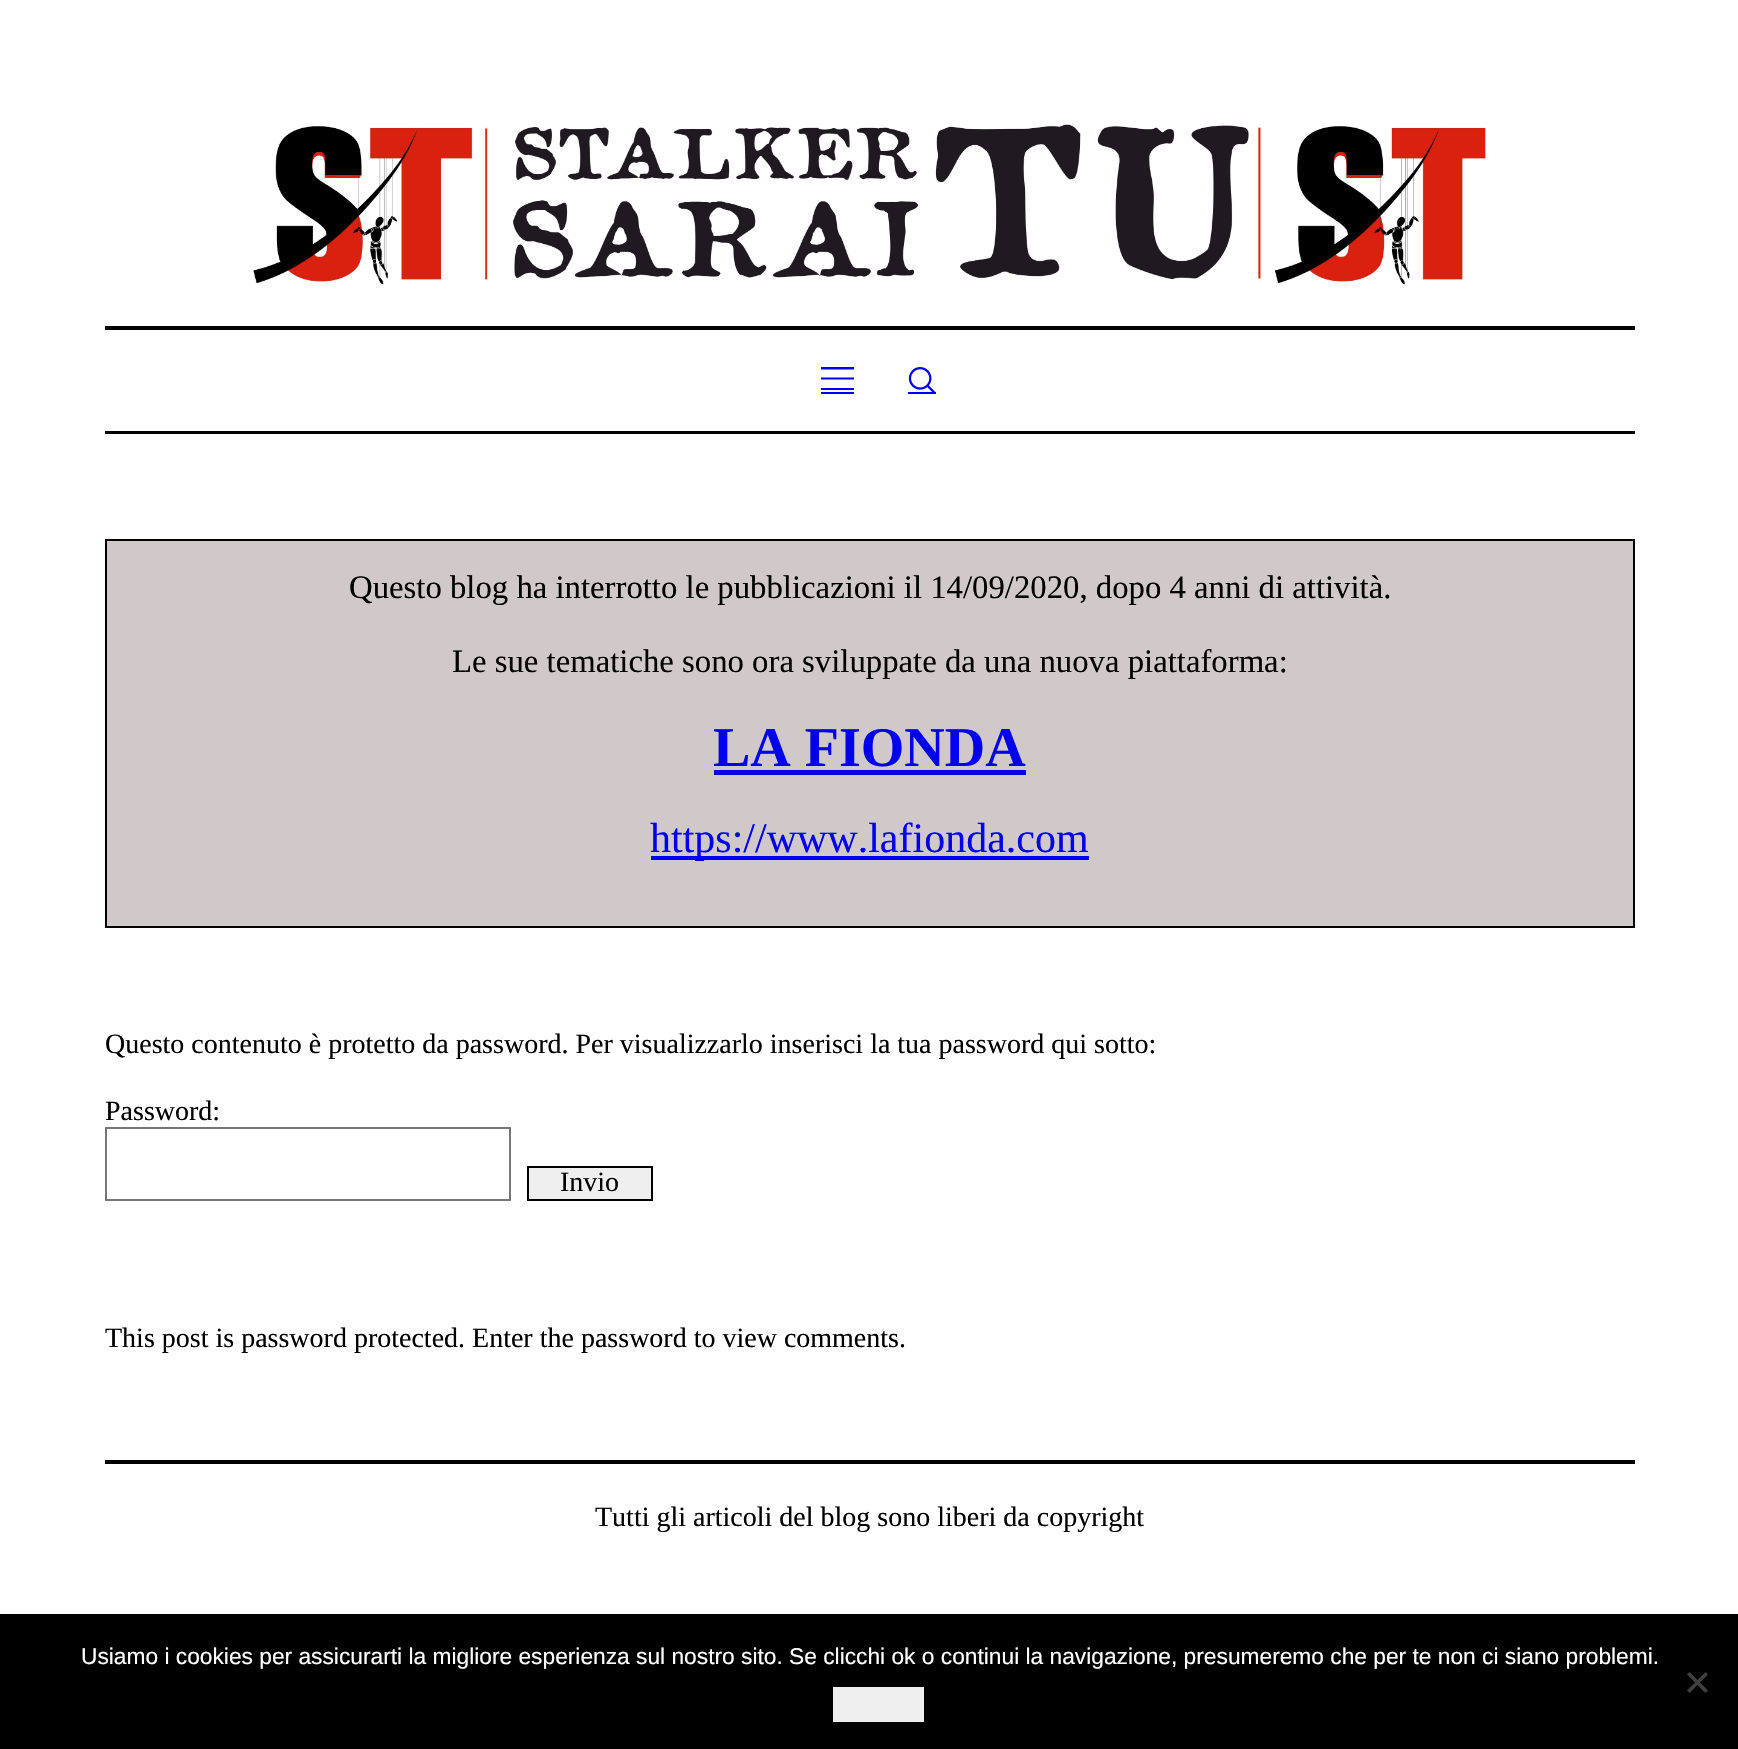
#include "include/core/SkBlurTypes.h"
#include "include/core/SkCanvas.h"
#include "include/core/SkData.h"
#include "include/core/SkFont.h"
#include "include/core/SkFontMgr.h"
#include "include/core/SkImage.h"
#include "include/core/SkMaskFilter.h"
#include "include/core/SkPaint.h"
#include "include/core/SkPathBuilder.h"
#include "include/core/SkTextBlob.h"
#include "include/effects/SkDashPathEffect.h"
#include "include/effects/SkGradientShader.h"
#include "include/utils/SkParsePath.h"

extern sk_sp<SkFontMgr> fontMgr;

void draw(SkCanvas* canvas) {
  SkPaint p;
  p.setAntiAlias(true);
  canvas->clear(SK_ColorWHITE);
  canvas->drawImageRect(SkImages::DeferredFromEncodedData(SkData::MakeFromFileName("images/1.png")), SkRect::MakeLTRB(253, 124, 1486, 285), SkSamplingOptions());
  p.setColor(SK_ColorBLACK);
  canvas->drawRect(SkRect::MakeLTRB(105, 326, 1635, 330), p);
  canvas->drawRect(SkRect::MakeLTRB(105, 431, 1635, 434), p);
  p.setColor(SkColorSetRGB(0, 0, 238));
  canvas->drawRect(SkRect::MakeLTRB(821, 392, 854, 394), p);
  canvas->drawPath(SkPathBuilder().moveTo(821, 367).lineTo(821, 369.5f).lineTo(854, 369.5f).lineTo(854, 367).close().moveTo(821, 379.5f).lineTo(854, 379.5f).lineTo(854, 377.5f).lineTo(821, 377.5f).close().moveTo(821, 390).lineTo(854, 390).lineTo(854, 388).lineTo(821, 388).close().detach(), p);
  canvas->drawRect(SkRect::MakeLTRB(908, 392, 936, 394), p);
  canvas->drawImageRect(SkImages::DeferredFromEncodedData(SkData::MakeFromFileName("images/2.png")), SkRect::MakeLTRB(908, 367, 936, 392), SkSamplingOptions());
  p.setColor(SK_ColorBLACK);
  canvas->drawRect(SkRect::MakeLTRB(105, 539, 1635, 541), p);
  canvas->drawRect(SkRect::MakeLTRB(1633, 539, 1635, 928), p);
  canvas->drawRect(SkRect::MakeLTRB(105, 926, 1635, 928), p);
  canvas->drawRect(SkRect::MakeLTRB(105, 539, 107, 928), p);
  p.setColor(SkColorSetRGB(209, 201, 201));
  canvas->drawRect(SkRect::MakeLTRB(107, 541, 1633, 926), p);
  p.setColor(SkColorSetRGB(0, 0, 238));
  canvas->drawRect(SkRect::MakeLTRB(714, 770, 1026, 775), p);
  canvas->drawRect(SkRect::MakeLTRB(651, 856, 1089, 860), p);
  p.setStyle(SkPaint::kStroke_Style);
  p.setStrokeWidth(2);
  p.setColor(SkColorSetRGB(118, 118, 118));
  canvas->drawRect(SkRect::MakeLTRB(106, 1128, 510, 1200), p);
  p.setStyle(SkPaint::kFill_Style);
  p.setColor(SkColorSetRGB(239, 239, 239));
  canvas->drawRect(SkRect::MakeLTRB(528, 1167, 652, 1200), p);
  p.setStyle(SkPaint::kStroke_Style);
  p.setColor(SK_ColorBLACK);
  canvas->drawRect(SkRect::MakeLTRB(528, 1167, 652, 1200), p);
  p.setStyle(SkPaint::kFill_Style);
  canvas->drawRect(SkRect::MakeLTRB(105, 1460, 1635, 1464), p);
  canvas->drawRect(SkRect::MakeLTRB(0, 1614, 1738, 1749), p);
  p.setColor(SkColorSetRGB(64, 64, 64));
  canvas->drawPath(SkPathBuilder().moveTo(1705.5f, 1672).lineTo(1708, 1674.5f).lineTo(1689.5f, 1693).lineTo(1687, 1690.5f).close().detach(), p);
  canvas->drawPath(SkPathBuilder().moveTo(1687, 1674.5f).lineTo(1689.5f, 1672).lineTo(1708, 1690.5f).lineTo(1705.5f, 1693).close().detach(), p);
  p.setColor(SkColorSetRGB(239, 239, 239));
  canvas->drawRect(SkRect::MakeLTRB(833, 1687, 924, 1722), p);
  SkFont font1(fontMgr->matchFamilyStyle("Liberation Serif", SkFontStyle::Normal()), 32.75f);
  font1.setSubpixel(true);
  p.setColor(SK_ColorBLACK);
  canvas->drawString("Questo blog ha interrotto le pubblicazioni il 14/09/2020, dopo 4 anni di attività.", 349, 598, font1, p);
  canvas->drawString("Le sue tematiche sono ora sviluppate da una nuova piattaforma:", 452, 672, font1, p);
  SkFont font2(fontMgr->matchFamilyStyle("Liberation Serif", SkFontStyle::Bold()), 56);
  font2.setSubpixel(true);
  p.setColor(SkColorSetRGB(0, 0, 238));
  canvas->drawString("LA FIONDA", 713, 766, font2, p);
  SkFont font3(fontMgr->matchFamilyStyle("Liberation Serif", SkFontStyle::Normal()), 42);
  font3.setSubpixel(true);
  canvas->drawString("https://www.lafionda.com", 650, 852, font3, p);
  SkFont font4(fontMgr->matchFamilyStyle("Liberation Serif", SkFontStyle::Normal()), 28);
  font4.setSubpixel(true);
  p.setColor(SK_ColorBLACK);
  canvas->drawString("Questo contenuto è protetto da password. Per visualizzarlo inserisci la tua password qui sotto:", 105, 1053, font4, p);
  canvas->drawString("Password:", 105, 1120, font4, p);
  canvas->drawString("Invio", 560, 1191, font4, p);
  canvas->drawString("This post is password protected. Enter the password to view comments.", 105, 1347, font4, p);
  canvas->drawString("Tutti gli articoli del blog sono liberi da copyright", 595, 1526, font4, p);
  SkFont font5(fontMgr->matchFamilyStyle("Liberation Sans", SkFontStyle::Normal()), 22.75f);
  font5.setSubpixel(true);
  p.setColor(SK_ColorWHITE);
  canvas->drawString("Usiamo i cookies per assicurarti la migliore esperienza sul nostro sito. Se clicchi ok o continui la navigazione, presumeremo che per te non ci siano problemi.", 81, 1664, font5, p);
}
